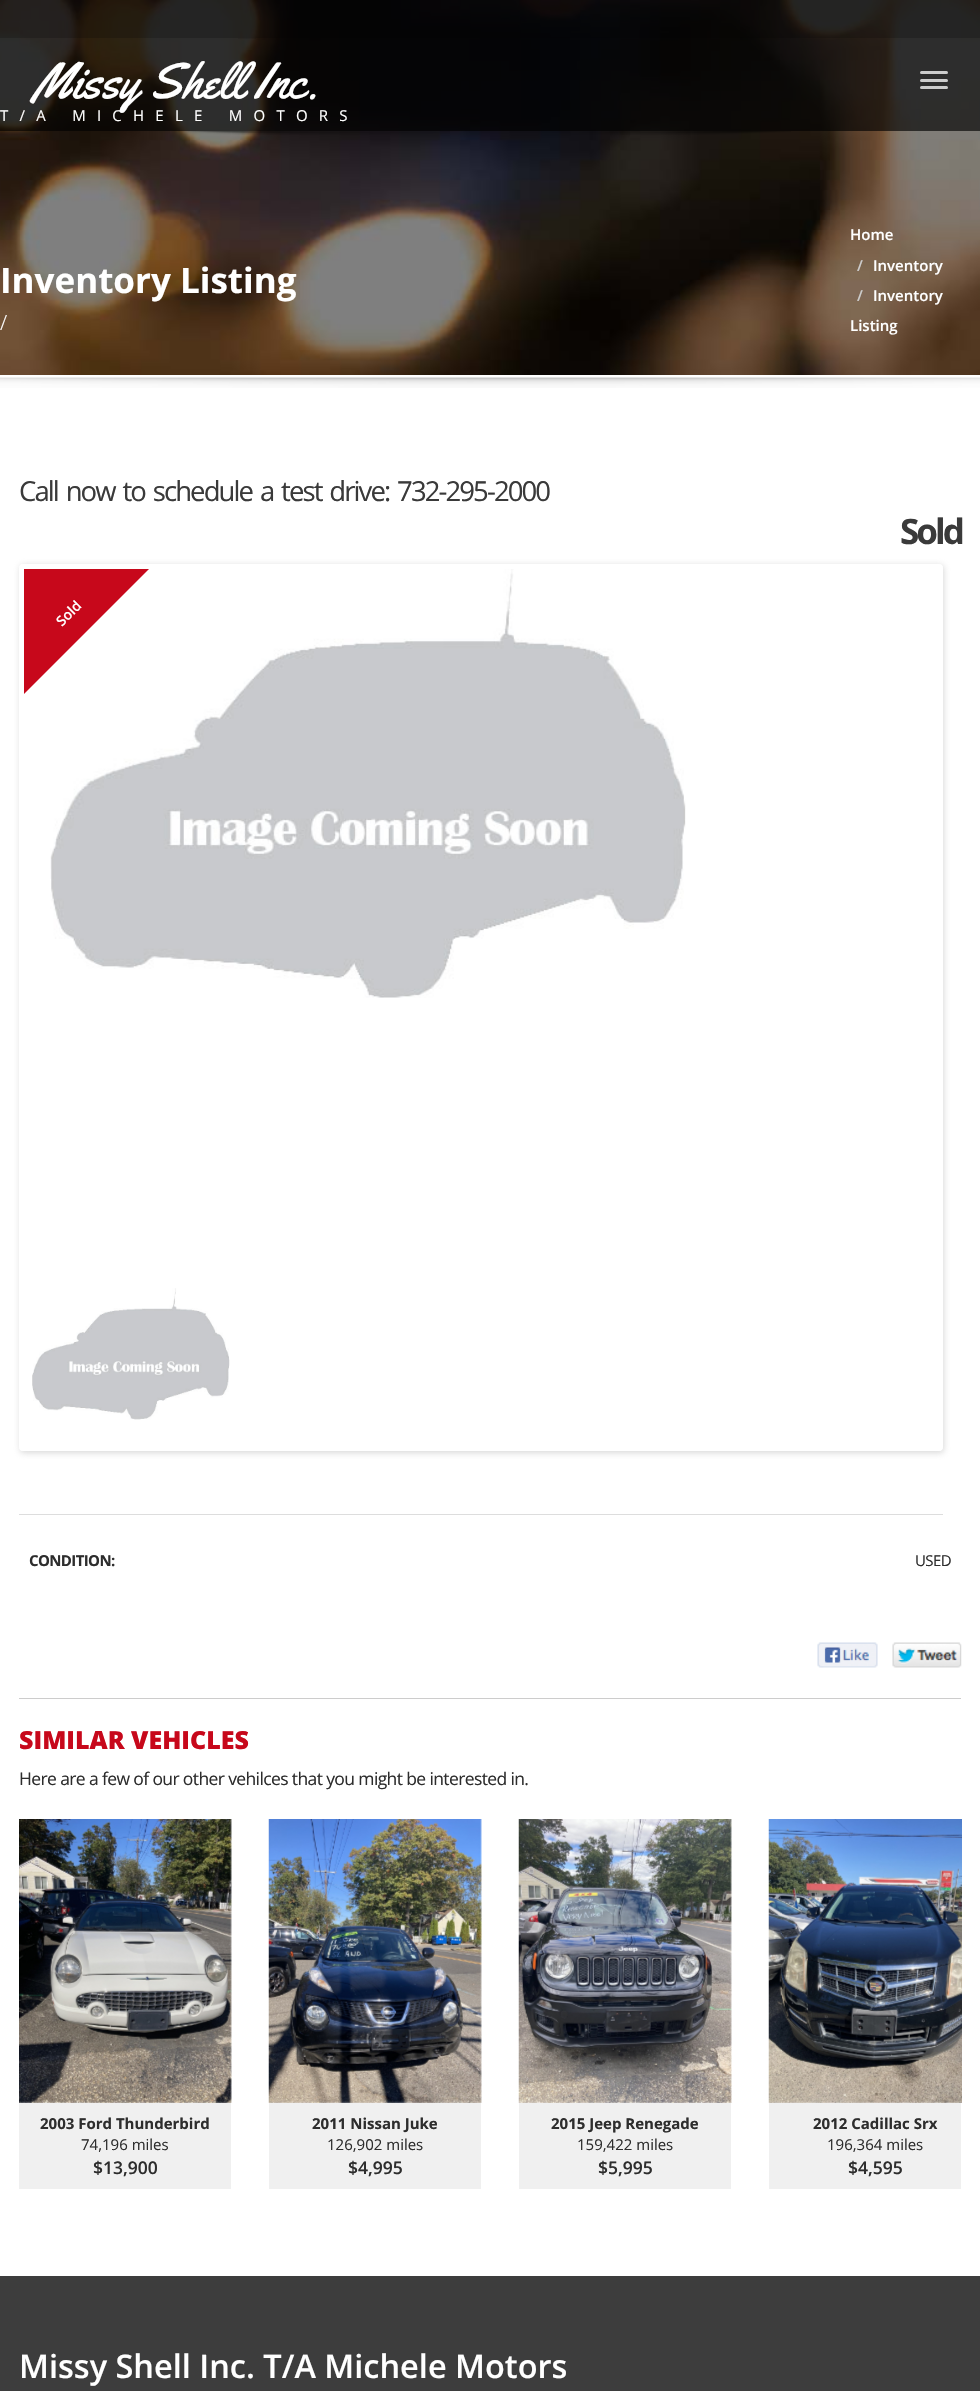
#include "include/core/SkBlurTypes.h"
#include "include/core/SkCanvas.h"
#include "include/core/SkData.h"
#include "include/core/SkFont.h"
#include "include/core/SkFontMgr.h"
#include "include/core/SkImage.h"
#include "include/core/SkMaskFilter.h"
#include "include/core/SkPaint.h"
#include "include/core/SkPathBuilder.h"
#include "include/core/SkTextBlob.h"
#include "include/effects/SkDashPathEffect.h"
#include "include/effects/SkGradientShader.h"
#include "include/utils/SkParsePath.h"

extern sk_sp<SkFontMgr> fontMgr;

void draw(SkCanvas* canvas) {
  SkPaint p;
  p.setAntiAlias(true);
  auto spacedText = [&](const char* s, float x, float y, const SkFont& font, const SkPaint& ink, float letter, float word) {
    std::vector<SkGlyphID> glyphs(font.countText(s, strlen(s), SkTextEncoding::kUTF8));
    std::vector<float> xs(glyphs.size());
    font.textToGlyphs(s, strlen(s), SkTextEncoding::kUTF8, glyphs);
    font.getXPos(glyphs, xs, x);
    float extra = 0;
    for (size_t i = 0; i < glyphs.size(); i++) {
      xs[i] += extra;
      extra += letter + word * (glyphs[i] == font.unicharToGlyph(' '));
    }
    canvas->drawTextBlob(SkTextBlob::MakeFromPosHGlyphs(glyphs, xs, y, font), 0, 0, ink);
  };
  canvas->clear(SK_ColorWHITE);
  canvas->drawImageRect(SkImages::DeferredFromEncodedData(SkData::MakeFromFileName("images/3.png")), SkRect::MakeLTRB(0, 0, 980, 375), SkSamplingOptions());
  p.setColor(SkColorSetARGB(166, 0, 0, 0));
  canvas->drawRect(SkRect::MakeLTRB(0, 0, 980, 131), p);
  p.setColor(SkColorSetARGB(51, 0, 0, 0));
  canvas->drawRect(SkRect::MakeLTRB(0, 0, 980, 38), p);
  canvas->drawImageRect(SkImages::DeferredFromEncodedData(SkData::MakeFromFileName("images/1.png")), SkRect::MakeLTRB(238, 38, 256, 39), SkSamplingOptions());
  p.setColor(SkColorSetRGB(204, 204, 204));
  canvas->drawRoundRect(SkRect::MakeLTRB(920, 71, 948, 74), 1.5f, 1.5f, p);
  canvas->drawRoundRect(SkRect::MakeLTRB(920, 79, 948, 82), 1.5f, 1.5f, p);
  canvas->drawRoundRect(SkRect::MakeLTRB(920, 86, 948, 89), 1.5f, 1.5f, p);
  canvas->drawImageRect(SkImages::DeferredFromEncodedData(SkData::MakeFromFileName("images/2.png")), SkRect::MakeLTRB(178, 131, 791, 135), SkSamplingOptions());
  canvas->drawImageRect(SkImages::DeferredFromEncodedData(SkData::MakeFromFileName("images/4.png")), SkRect::MakeLTRB(0, 377, 980, 388), SkSamplingOptions());
  canvas->save();
  canvas->clipPath(SkPathBuilder(SkPathFillType::kEvenOdd).moveTo(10, 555).lineTo(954, 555).lineTo(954, 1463).lineTo(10, 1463).close().moveTo(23, 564).lineTo(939, 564).cubicTo(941, 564, 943, 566, 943, 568).lineTo(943, 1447).cubicTo(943, 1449, 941, 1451, 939, 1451).lineTo(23, 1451).cubicTo(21, 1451, 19, 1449, 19, 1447).lineTo(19, 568).cubicTo(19, 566, 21, 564, 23, 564).close().detach(), true);
  p.setColor(SkColorSetARGB(191, 204, 204, 204));
  p.setMaskFilter(SkMaskFilter::MakeBlur(kNormal_SkBlurStyle, 3));
  canvas->drawRoundRect(SkRect::MakeLTRB(20, 565, 944, 1453), 4, 4, p);
  p.setMaskFilter(nullptr);
  canvas->restore();
  p.setStyle(SkPaint::kStroke_Style);
  p.setStrokeWidth(5);
  p.setColor(SK_ColorWHITE);
  canvas->drawRoundRect(SkRect::MakeLTRB(21.5f, 566.5f, 940.5f, 1448.5f), 1.5f, 1.5f, p);
  canvas->drawImageRect(SkImages::DeferredFromEncodedData(SkData::MakeFromFileName("images/5.png")), SkRect::MakeLTRB(50, 569, 686, 998), SkSamplingOptions());
  p.setStyle(SkPaint::kFill_Style);
  p.setColor(SkColorSetRGB(199, 8, 27));
  canvas->drawPath(SkPathBuilder().moveTo(24, 569).lineTo(149, 569).lineTo(24, 694).close().detach(), p);
  canvas->drawImageRect(SkImages::DeferredFromEncodedData(SkData::MakeFromFileName("images/6.png")), SkRect::MakeLTRB(32, 1288, 230, 1420), SkSamplingOptions());
  p.setColor(SkColorSetRGB(221, 221, 221));
  canvas->drawRect(SkRect::MakeLTRB(19, 1514, 943, 1515), p);
  canvas->drawImageRect(SkImages::DeferredFromEncodedData(SkData::MakeFromFileName("images/7.png")), SkRect::MakeLTRB(817, 1642, 878, 1668), SkSamplingOptions());
  canvas->drawImageRect(SkImages::DeferredFromEncodedData(SkData::MakeFromFileName("images/8.png")), SkRect::MakeLTRB(892, 1642, 962, 1668), SkSamplingOptions());
  p.setColor(SkColorSetRGB(204, 204, 204));
  canvas->drawRect(SkRect::MakeLTRB(19, 1698, 961, 1699), p);
  p.setColor(SkColorSetRGB(240, 240, 240));
  canvas->drawRect(SkRect::MakeLTRB(19, 1819, 231, 2189), p);
  canvas->drawImageRect(SkImages::DeferredFromEncodedData(SkData::MakeFromFileName("images/9.png")), SkRect::MakeLTRB(19, 1819, 232, 2103), SkSamplingOptions());
  canvas->drawRect(SkRect::MakeLTRB(269, 1819, 481, 2189), p);
  canvas->drawImageRect(SkImages::DeferredFromEncodedData(SkData::MakeFromFileName("images/10.png")), SkRect::MakeLTRB(268, 1819, 482, 2103), SkSamplingOptions());
  canvas->drawRect(SkRect::MakeLTRB(519, 1819, 731, 2189), p);
  canvas->drawImageRect(SkImages::DeferredFromEncodedData(SkData::MakeFromFileName("images/11.png")), SkRect::MakeLTRB(518, 1819, 732, 2103), SkSamplingOptions());
  canvas->drawRect(SkRect::MakeLTRB(769, 2101, 961, 2189), p);
  canvas->drawImageRect(SkImages::DeferredFromEncodedData(SkData::MakeFromFileName("images/12.png")), SkRect::MakeLTRB(768, 1819, 962, 2103), SkSamplingOptions());
  p.setColor(SkColorSetRGB(61, 61, 61));
  canvas->drawRect(SkRect::MakeLTRB(0, 2276, 980, 2391), p);
  SkFont font1(fontMgr->matchFamilyStyle("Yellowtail", SkFontStyle::Normal()), 50);
  font1.setSubpixel(true);
  p.setColor(SK_ColorWHITE);
  canvas->drawString("Missy Shell Inc.", 34, 98, font1, p);
  SkFont font2(fontMgr->matchFamilyStyle("Open Sans", SkFontStyle::Normal()), 15);
  font2.setSubpixel(true);
  spacedText("T/A MICHELE MOTORS", 0, 121, font2, p, 11.25f, 0);
  SkFont font3(fontMgr->matchFamilyStyle("Open Sans", SkFontStyle::Bold()), 35);
  font3.setSubpixel(true);
  canvas->drawString("Inventory Listing", 0, 293, font3, p);
  SkFont font4(fontMgr->matchFamilyStyle("Open Sans", SkFontStyle(300, SkFontStyle::kNormal_Width, SkFontStyle::kUpright_Slant)), 21);
  font4.setSubpixel(true);
  canvas->drawString("/", 0, 330, font4, p);
  SkFont font5(fontMgr->matchFamilyStyle("Open Sans", SkFontStyle(600, SkFontStyle::kNormal_Width, SkFontStyle::kUpright_Slant)), 15);
  font5.setSubpixel(true);
  canvas->drawString("Home", 850, 240, font5, p);
  p.setColor(SkColorSetRGB(204, 204, 204));
  canvas->drawString("/", 857, 271, font5, p);
  p.setColor(SK_ColorWHITE);
  canvas->drawString("Inventory", 873, 271, font5, p);
  p.setColor(SkColorSetRGB(204, 204, 204));
  canvas->drawString("/", 857, 301, font5, p);
  p.setColor(SK_ColorWHITE);
  canvas->drawString("Inventory", 873, 301, font5, p);
  canvas->drawString("Listing", 850, 331, font5, p);
  SkFont font6(fontMgr->matchFamilyStyle("Open Sans", SkFontStyle::Normal()), 27.5f);
  font6.setSubpixel(true);
  p.setColor(SkColorSetRGB(58, 58, 58));
  spacedText("Call now to schedule a test drive: 732-295-2000", 19, 501, font6, p, -1.9f, 2.5f);
  spacedText("Sold", 900, 544, font3, p, -3, 0);
  SkFont font7(fontMgr->matchFamilyStyle("Open Sans", SkFontStyle(600, SkFontStyle::kNormal_Width, SkFontStyle::kUpright_Slant)), 14);
  font7.setSubpixel(true);
  p.setColor(SK_ColorWHITE);
  canvas->save();
  canvas->rotate(-45, 62, 627);
  canvas->drawString("Sold", 62, 627, font7, p);
  canvas->restore();
  SkFont font8(fontMgr->matchFamilyStyle("Open Sans", SkFontStyle::Bold()), 15);
  font8.setSubpixel(true);
  p.setColor(SkColorSetRGB(45, 45, 45));
  spacedText("CONDITION:", 29, 1566, font8, p, -0.62f, 0);
  spacedText("USED", 915, 1566, font2, p, -0.62f, 0);
  SkFont font9(fontMgr->matchFamilyStyle("Open Sans", SkFontStyle(800, SkFontStyle::kNormal_Width, SkFontStyle::kUpright_Slant)), 25);
  font9.setSubpixel(true);
  p.setColor(SkColorSetRGB(199, 8, 27));
  canvas->drawString("SIMILAR VEHICLES", 19, 1749, font9, p);
  SkFont font10(fontMgr->matchFamilyStyle("Open Sans", SkFontStyle::Normal()), 17.5f);
  font10.setSubpixel(true);
  p.setColor(SkColorSetRGB(45, 45, 45));
  spacedText("Here are a few of our other vehilces that you might be interested in.", 19, 1785, font10, p, -0.62f, 0);
  canvas->drawString("2003 Ford Thunderbird", 40, 2129, font8, p);
  canvas->drawString("74,196 miles", 81, 2150, font2, p);
  SkFont font11(fontMgr->matchFamilyStyle("Open Sans", SkFontStyle(600, SkFontStyle::kNormal_Width, SkFontStyle::kUpright_Slant)), 17.5f);
  font11.setSubpixel(true);
  canvas->drawString("$13,900", 93, 2174, font11, p);
  canvas->drawString("2011 Nissan Juke", 312, 2129, font8, p);
  canvas->drawString("126,902 miles", 327, 2150, font2, p);
  canvas->drawString("$4,995", 348, 2174, font11, p);
  canvas->drawString("2015 Jeep Renegade", 551, 2129, font8, p);
  canvas->drawString("159,422 miles", 577, 2150, font2, p);
  canvas->drawString("$5,995", 598, 2174, font11, p);
  canvas->drawString("2012 Cadillac Srx", 813, 2129, font8, p);
  canvas->drawString("196,364 miles", 827, 2150, font2, p);
  canvas->drawString("$4,595", 848, 2174, font11, p);
  SkFont font12(fontMgr->matchFamilyStyle("Open Sans", SkFontStyle(600, SkFontStyle::kNormal_Width, SkFontStyle::kUpright_Slant)), 32.5f);
  font12.setSubpixel(true);
  p.setColor(SK_ColorWHITE);
  canvas->drawString("Missy Shell Inc. T/A Michele Motors", 19, 2378, font12, p);
}
